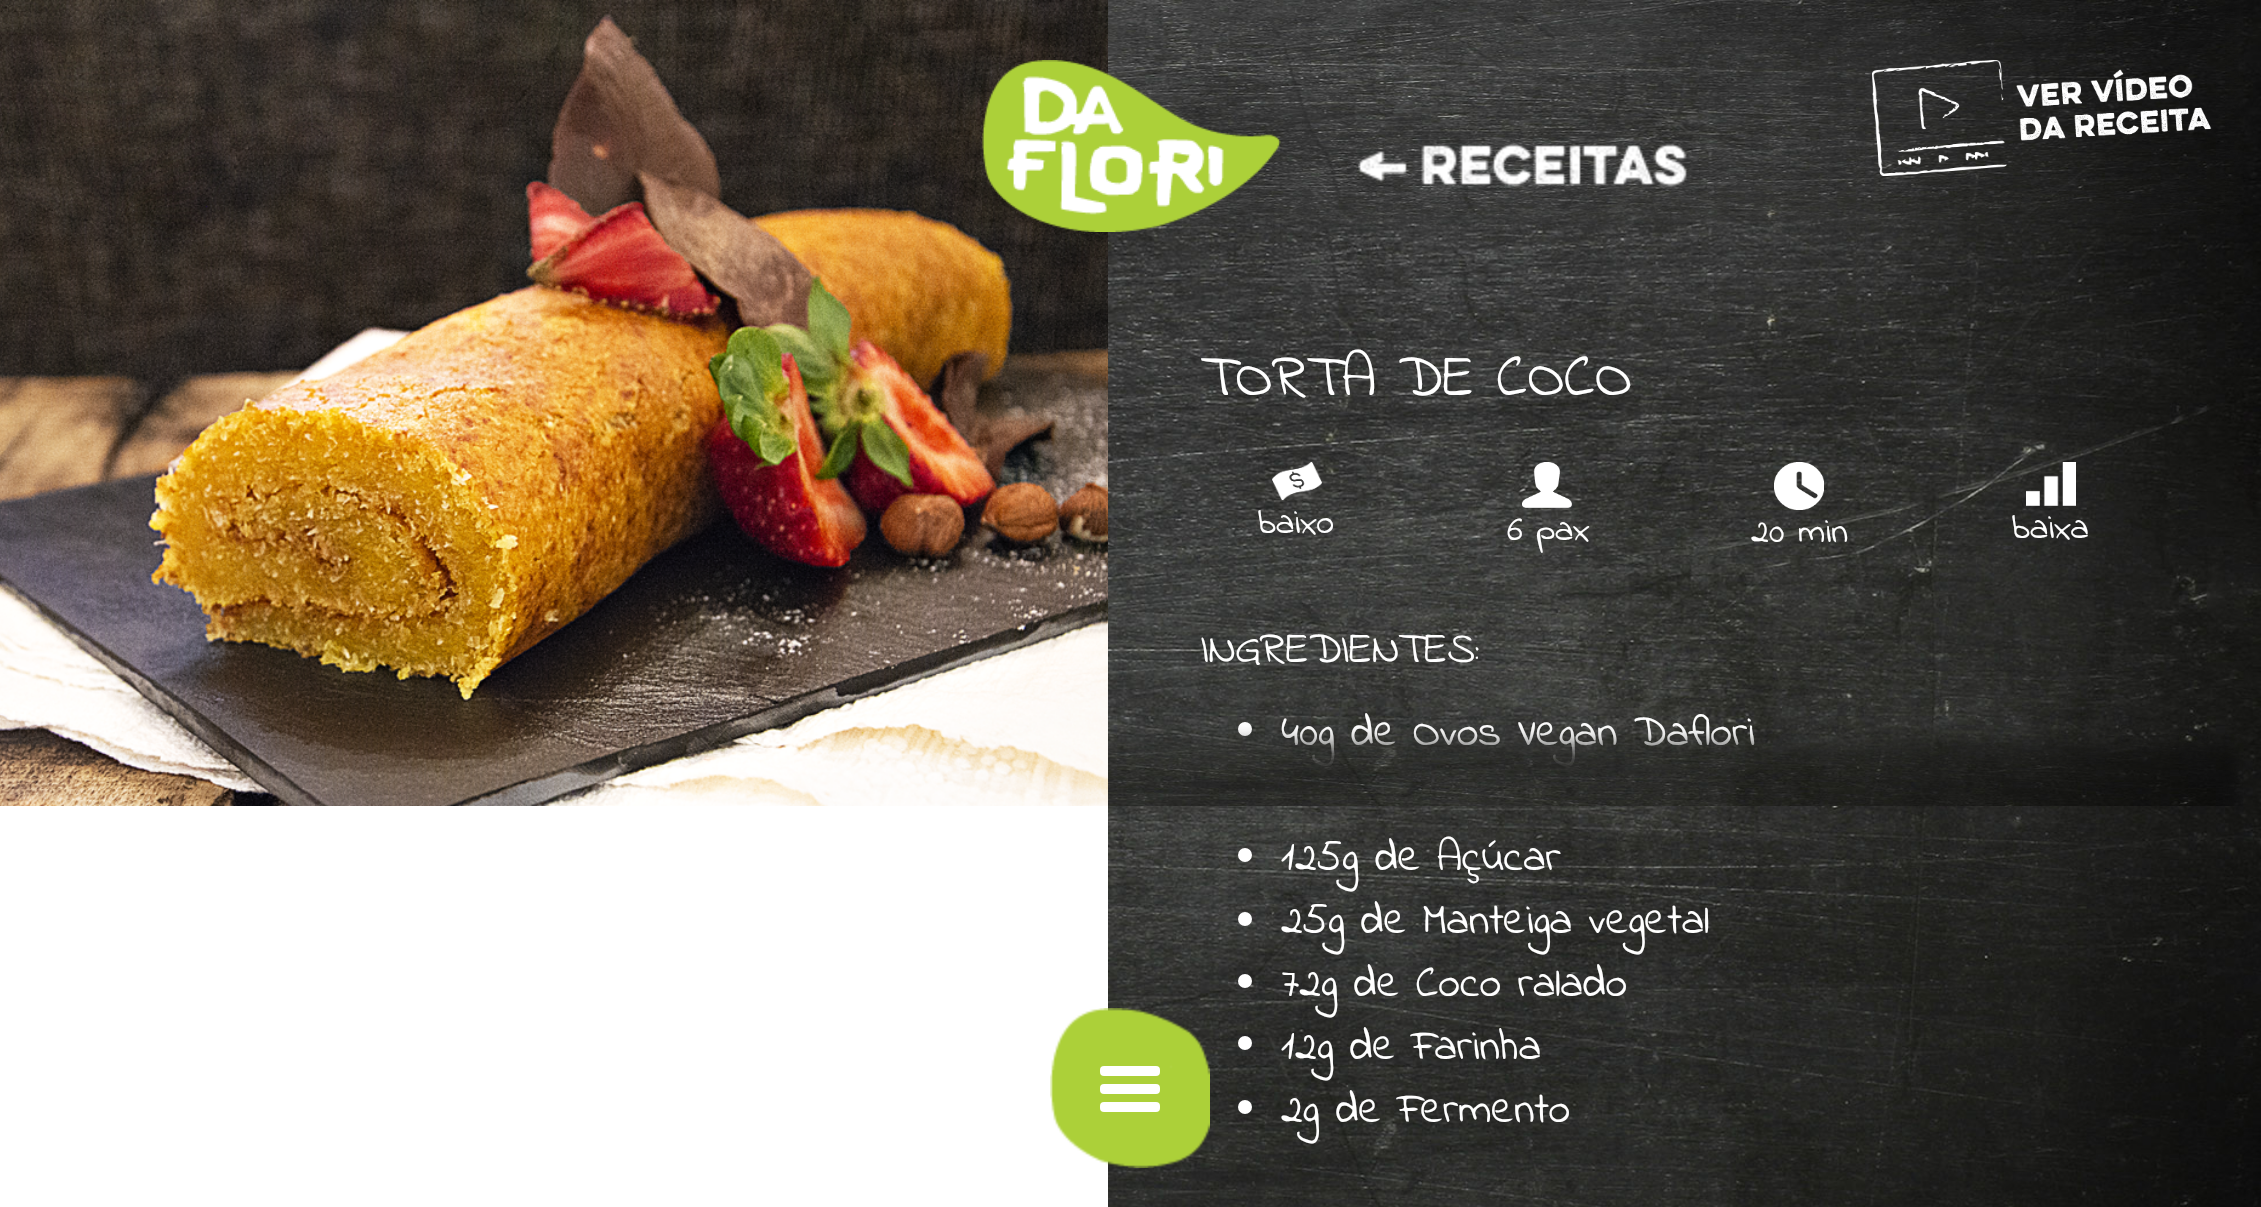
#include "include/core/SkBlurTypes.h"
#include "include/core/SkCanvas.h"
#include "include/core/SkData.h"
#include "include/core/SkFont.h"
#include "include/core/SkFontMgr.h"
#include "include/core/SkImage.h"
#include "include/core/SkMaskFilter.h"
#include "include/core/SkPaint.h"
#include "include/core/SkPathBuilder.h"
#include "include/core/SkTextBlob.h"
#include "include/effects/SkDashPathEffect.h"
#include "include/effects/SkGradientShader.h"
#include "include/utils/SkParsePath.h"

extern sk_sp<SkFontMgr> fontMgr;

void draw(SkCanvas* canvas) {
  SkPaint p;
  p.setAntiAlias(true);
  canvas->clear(SK_ColorWHITE);
  canvas->drawImageRect(SkImages::DeferredFromEncodedData(SkData::MakeFromFileName("images/5.png")), SkRect::MakeLTRB(1108, 0, 2261, 1207), SkSamplingOptions());
  canvas->drawImageRect(SkImages::DeferredFromEncodedData(SkData::MakeFromFileName("images/1.png")), SkRect::MakeLTRB(1050, 1008, 1210, 1168), SkSamplingOptions());
  p.setColor(SK_ColorWHITE);
  canvas->drawRoundRect(SkRect::MakeLTRB(1100, 1084, 1160, 1094), 4, 4, p);
  canvas->drawRoundRect(SkRect::MakeLTRB(1100, 1066, 1160, 1076), 4, 4, p);
  canvas->drawRoundRect(SkRect::MakeLTRB(1100, 1102, 1160, 1112), 4, 4, p);
  canvas->drawImageRect(SkImages::DeferredFromEncodedData(SkData::MakeFromFileName("images/2.png")), SkRect::MakeLTRB(0, 0, 1108, 806), SkSamplingOptions());
  canvas->drawImageRect(SkImages::DeferredFromEncodedData(SkData::MakeFromFileName("images/8.png")), SkRect::MakeLTRB(1272, 462, 1322, 500), SkSamplingOptions());
  canvas->drawImageRect(SkImages::DeferredFromEncodedData(SkData::MakeFromFileName("images/9.png")), SkRect::MakeLTRB(1522, 462, 1572, 508), SkSamplingOptions());
  canvas->drawImageRect(SkImages::DeferredFromEncodedData(SkData::MakeFromFileName("images/10.png")), SkRect::MakeLTRB(1774, 462, 1824, 510), SkSamplingOptions());
  canvas->drawImageRect(SkImages::DeferredFromEncodedData(SkData::MakeFromFileName("images/11.png")), SkRect::MakeLTRB(2026, 462, 2076, 506), SkSamplingOptions());
  canvas->drawCircle(1245, 729, 7, p);
  canvas->drawCircle(1245, 855, 7, p);
  canvas->drawCircle(1245, 919, 7, p);
  canvas->drawCircle(1245, 981, 7, p);
  canvas->drawCircle(1245, 1043, 7, p);
  canvas->drawCircle(1245, 1107, 7, p);
  SkFont font1(fontMgr->matchFamilyStyle("Indie Flower", SkFontStyle::Normal()), 60);
  font1.setSubpixel(true);
  canvas->drawString("TORTA DE COCO", 1201, 395, font1, p);
  SkFont font2(fontMgr->matchFamilyStyle("Indie Flower", SkFontStyle::Normal()), 36);
  font2.setSubpixel(true);
  canvas->drawString("baixo", 1258, 533, font2, p);
  canvas->drawString("6 pax", 1507, 540, font2, p);
  canvas->drawString("20 min", 1751, 542, font2, p);
  canvas->drawString("baixa", 2012, 538, font2, p);
  SkFont font3(fontMgr->matchFamilyStyle("Indie Flower", SkFontStyle::Normal()), 44);
  font3.setSubpixel(true);
  canvas->drawString("INGREDIENTES:", 1201, 662, font3, p);
  canvas->drawString("40g de Ovos Vegan Daflori", 1281, 745, font3, p);
  canvas->drawImageRect(SkImages::DeferredFromEncodedData(SkData::MakeFromFileName("images/3.png")), SkRect::MakeLTRB(1108, 0, 2243, 806), SkSamplingOptions());
  canvas->drawImageRect(SkImages::DeferredFromEncodedData(SkData::MakeFromFileName("images/4.png")), SkRect::MakeLTRB(982, 60, 1281, 232), SkSamplingOptions());
  canvas->drawImageRect(SkImages::DeferredFromEncodedData(SkData::MakeFromFileName("images/7.png")), SkRect::MakeLTRB(1872, 60, 2212, 176), SkSamplingOptions());
  canvas->drawImageRect(SkImages::DeferredFromEncodedData(SkData::MakeFromFileName("images/6.png")), SkRect::MakeLTRB(1358, 143, 1687, 187), SkSamplingOptions());
  canvas->drawString("125g de Açúcar", 1281, 870, font3, p);
  canvas->drawString("25g de Manteiga vegetal", 1281, 933, font3, p);
  canvas->drawString("72g de Coco ralado", 1281, 996, font3, p);
  canvas->drawString("12g de Farinha", 1281, 1059, font3, p);
  canvas->drawString("2g de Fermento", 1281, 1122, font3, p);
}
